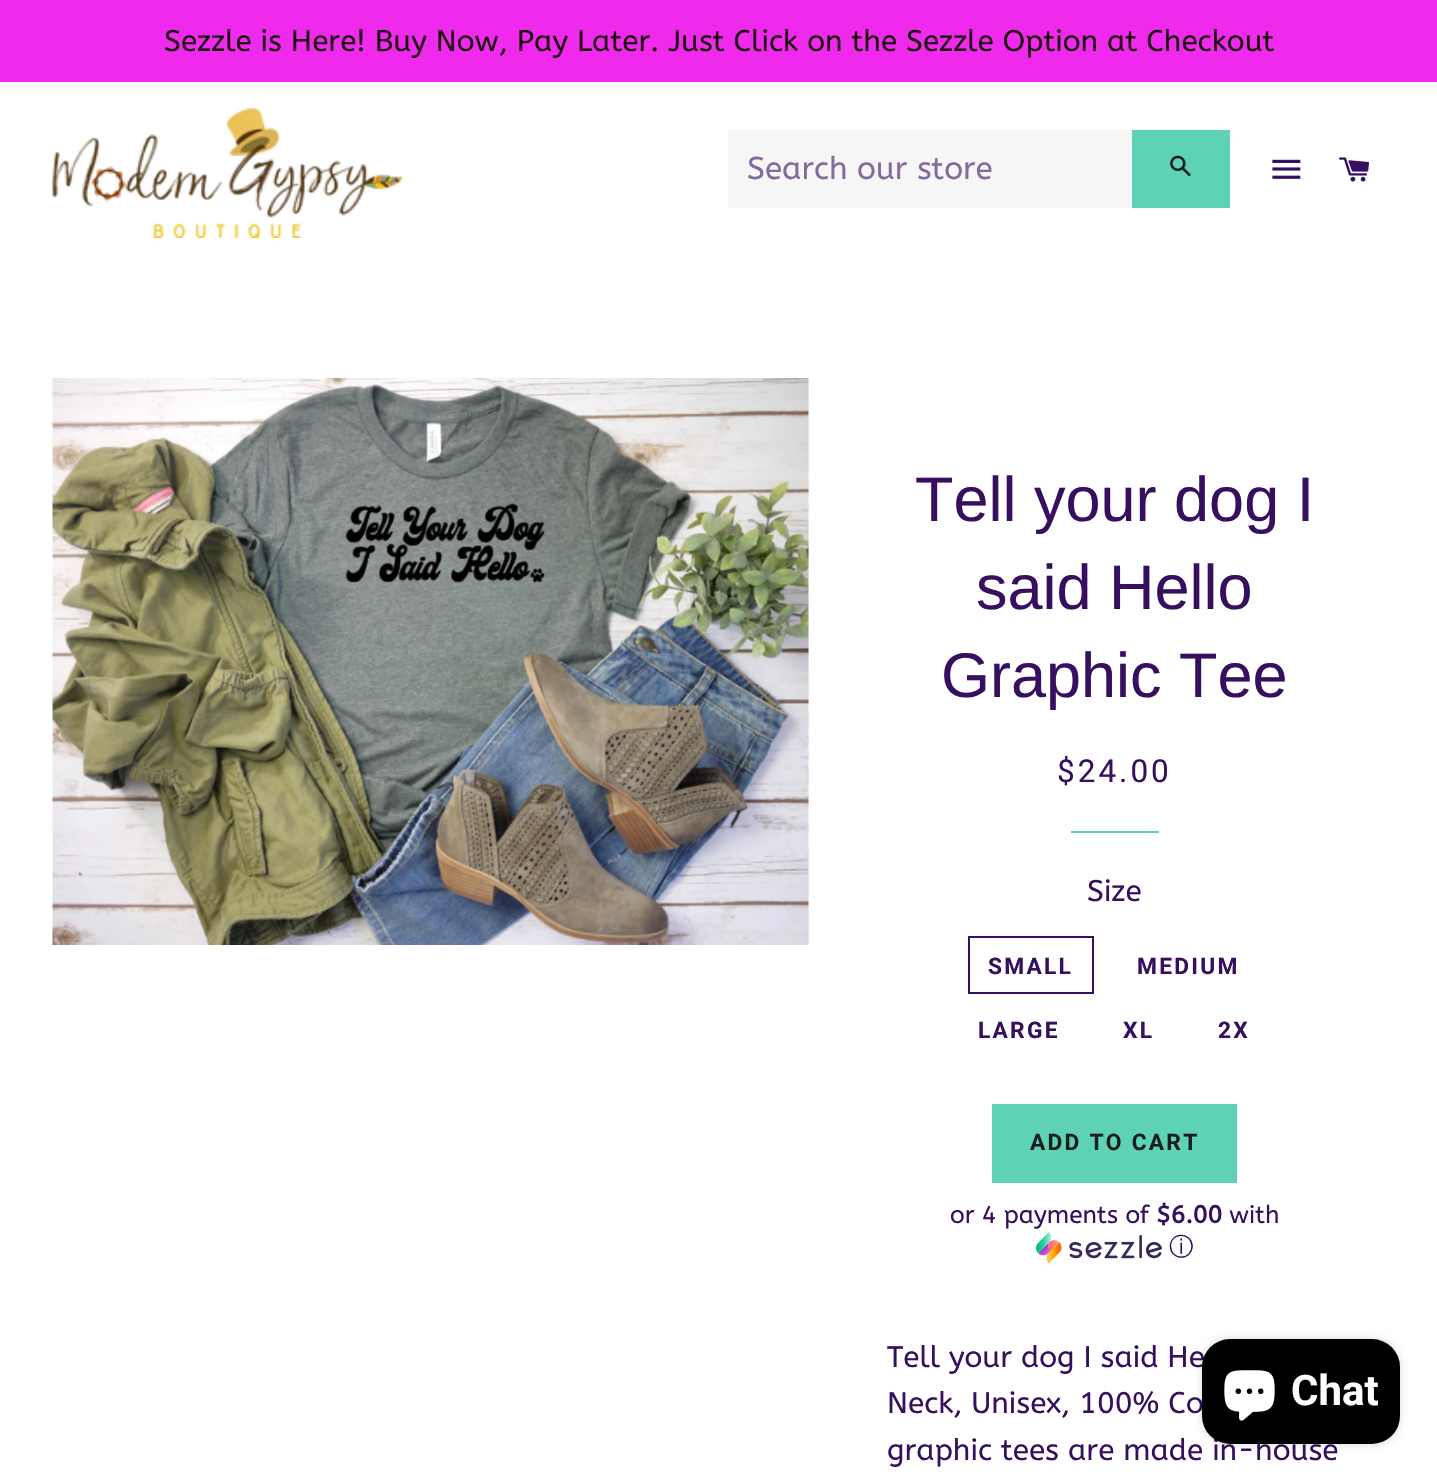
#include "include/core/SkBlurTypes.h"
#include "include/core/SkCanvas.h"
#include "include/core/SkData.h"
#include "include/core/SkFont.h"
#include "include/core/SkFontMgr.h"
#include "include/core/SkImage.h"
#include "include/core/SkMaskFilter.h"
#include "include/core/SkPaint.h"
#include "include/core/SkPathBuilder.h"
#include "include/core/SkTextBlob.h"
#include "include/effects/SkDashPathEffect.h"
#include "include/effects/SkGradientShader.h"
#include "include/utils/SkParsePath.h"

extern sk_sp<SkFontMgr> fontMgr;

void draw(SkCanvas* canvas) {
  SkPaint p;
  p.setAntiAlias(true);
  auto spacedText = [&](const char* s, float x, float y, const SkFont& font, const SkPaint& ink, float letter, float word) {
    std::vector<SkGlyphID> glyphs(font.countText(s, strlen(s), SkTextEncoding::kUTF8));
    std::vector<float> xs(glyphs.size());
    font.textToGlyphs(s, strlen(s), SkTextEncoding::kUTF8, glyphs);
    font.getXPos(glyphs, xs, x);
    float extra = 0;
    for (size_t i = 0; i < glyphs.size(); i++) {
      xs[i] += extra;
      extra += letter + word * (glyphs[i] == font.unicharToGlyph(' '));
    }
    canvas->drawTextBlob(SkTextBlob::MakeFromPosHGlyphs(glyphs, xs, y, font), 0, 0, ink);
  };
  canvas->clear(SK_ColorWHITE);
  p.setColor(SkColorSetRGB(240, 42, 237));
  canvas->drawRect(SkRect::MakeLTRB(0, 0, 1437, 82), p);
  canvas->drawImageRect(SkImages::DeferredFromEncodedData(SkData::MakeFromFileName("images/1.png")), SkRect::MakeLTRB(52, 108, 403, 238), SkSamplingOptions());
  p.setColor(SkColorSetRGB(246, 246, 246));
  canvas->drawRect(SkRect::MakeLTRB(728, 130, 1132, 208), p);
  p.setColor(SkColorSetRGB(93, 210, 180));
  canvas->drawRect(SkRect::MakeLTRB(1132, 130, 1230, 208), p);
  canvas->drawImageRect(SkImages::DeferredFromEncodedData(SkData::MakeFromFileName("images/2.png")), SkRect::MakeLTRB(1170, 155, 1191, 176), SkSamplingOptions());
  canvas->drawImageRect(SkImages::DeferredFromEncodedData(SkData::MakeFromFileName("images/3.png")), SkRect::MakeLTRB(1272, 159, 1301, 179), SkSamplingOptions());
  canvas->drawImageRect(SkImages::DeferredFromEncodedData(SkData::MakeFromFileName("images/4.png")), SkRect::MakeLTRB(1339, 157, 1369, 182), SkSamplingOptions());
  p.setColor(SkColorSetRGB(255, 244, 246));
  canvas->drawRect(SkRect::MakeLTRB(808, 378, 809, 945), p);
  canvas->drawImageRect(SkImages::DeferredFromEncodedData(SkData::MakeFromFileName("images/5.png")), SkRect::MakeLTRB(52, 378, 809, 945), SkSamplingOptions());
  p.setColor(SkColorSetRGB(93, 210, 180));
  canvas->drawRect(SkRect::MakeLTRB(1071, 831, 1159, 833), p);
  p.setStyle(SkPaint::kStroke_Style);
  p.setStrokeWidth(2);
  p.setColor(SkColorSetRGB(54, 15, 95));
  canvas->drawRect(SkRect::MakeLTRB(969, 937, 1093, 993), p);
  p.setStyle(SkPaint::kFill_Style);
  p.setColor(SkColorSetRGB(93, 210, 180));
  canvas->drawRect(SkRect::MakeLTRB(992, 1104, 1237, 1183), p);
  canvas->drawImageRect(SkImages::DeferredFromEncodedData(SkData::MakeFromFileName("images/6.png")), SkRect::MakeLTRB(1036, 1232, 1162, 1264), SkSamplingOptions());
  p.setColor(SkColorSetARGB(38, 0, 0, 0));
  p.setMaskFilter(SkMaskFilter::MakeBlur(kNormal_SkBlurStyle, 4.5f));
  canvas->drawRoundRect(SkRect::MakeLTRB(1202, 1339, 1400, 1444), 28, 28, p);
  p.setMaskFilter(nullptr);
  SkFont font1(fontMgr->matchFamilyStyle("ABeeZee", SkFontStyle::Normal()), 29.75f);
  font1.setSubpixel(true);
  p.setColor(SkColorSetRGB(30, 16, 16));
  canvas->drawString("Sezzle is Here! Buy Now, Pay Later. Just Click on the Sezzle Option at Checkout", 164, 51, font1, p);
  SkFont font2(fontMgr->matchFamilyStyle("ABeeZee", SkFontStyle::Normal()), 31.5f);
  font2.setSubpixel(true);
  p.setColor(SkColorSetRGB(131, 107, 155));
  canvas->drawString("Search our store", 747, 179, font2, p);
  SkFont font3(fontMgr->matchFamilyStyle("Liberation Sans", SkFontStyle::Normal()), 63);
  font3.setSubpixel(true);
  p.setColor(SkColorSetRGB(54, 15, 95));
  canvas->drawString("Tell your dog I", 915, 521, font3, p);
  canvas->drawString("said Hello", 976, 609, font3, p);
  canvas->drawString("Graphic Tee", 941, 697, font3, p);
  SkFont font4(fontMgr->matchFamilyStyle("Roboto", SkFontStyle::Normal()), 31.5f);
  font4.setSubpixel(true);
  spacedText("$24.00", 1057, 782, font4, p, 3, 0);
  canvas->drawString("Size", 1087, 901, font1, p);
  SkFont font5(fontMgr->matchFamilyStyle("Roboto", SkFontStyle::Bold()), 22.75f);
  font5.setSubpixel(true);
  spacedText("SMALL", 988, 974, font5, p, 2.25f, 0);
  spacedText("MEDIUM", 1137, 974, font5, p, 2.25f, 0);
  spacedText("LARGE", 978, 1038, font5, p, 2.25f, 0);
  spacedText("XL", 1123, 1038, font5, p, 2.25f, 0);
  spacedText("2X", 1218, 1038, font5, p, 2.25f, 0);
  p.setColor(SkColorSetRGB(28, 29, 29));
  spacedText("ADD TO CART", 1030, 1150, font5, p, 2.25f, 0);
  SkFont font6(fontMgr->matchFamilyStyle("ABeeZee", SkFontStyle::Normal()), 24.5f);
  font6.setSubpixel(true);
  p.setColor(SkColorSetRGB(54, 15, 95));
  canvas->drawString("or 4 payments of", 950, 1223, font6, p);
  SkFont font7(fontMgr->matchFamilyStyle("ABeeZee", SkFontStyle::Bold()), 24.5f);
  font7.setSubpixel(true);
  canvas->drawString("$6.00", 1156, 1223, font7, p);
  canvas->drawString("with", 1229, 1223, font6, p);
  SkFont font8(fontMgr->matchFamilyStyle("WenQuanYi Zen Hei", SkFontStyle(500, SkFontStyle::kNormal_Width, SkFontStyle::kUpright_Slant)), 24.5f);
  font8.setSubpixel(true);
  canvas->drawString("ⓘ", 1169, 1255, font8, p);
  canvas->drawString("Tell your dog I said He", 887, 1367, font1, p);
  canvas->drawString("Neck, Unisex, 100% Co", 887, 1413, font1, p);
  canvas->drawString("graphic tees are made in-house", 887, 1460, font1, p);
  p.setColor(SK_ColorBLACK);
  canvas->drawRoundRect(SkRect::MakeLTRB(1202, 1339, 1400, 1444), 28, 28, p);
  canvas->drawImageRect(SkImages::DeferredFromEncodedData(SkData::MakeFromFileName("images/7.png")), SkRect::MakeLTRB(1224, 1370, 1275, 1421), SkSamplingOptions());
  SkFont font9(fontMgr->matchFamilyStyle("Roboto", SkFontStyle::Bold()), 42);
  font9.setSubpixel(true);
  p.setColor(SK_ColorWHITE);
  canvas->drawString("Chat", 1291, 1405, font9, p);
}
